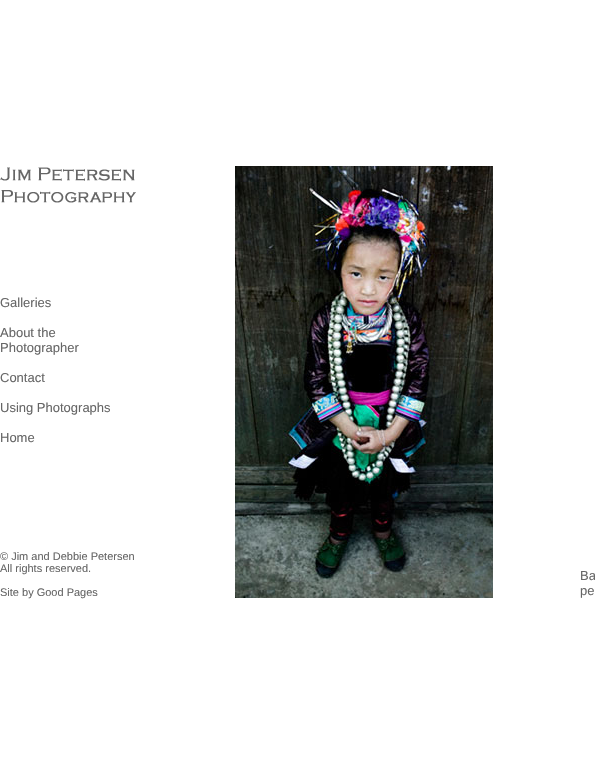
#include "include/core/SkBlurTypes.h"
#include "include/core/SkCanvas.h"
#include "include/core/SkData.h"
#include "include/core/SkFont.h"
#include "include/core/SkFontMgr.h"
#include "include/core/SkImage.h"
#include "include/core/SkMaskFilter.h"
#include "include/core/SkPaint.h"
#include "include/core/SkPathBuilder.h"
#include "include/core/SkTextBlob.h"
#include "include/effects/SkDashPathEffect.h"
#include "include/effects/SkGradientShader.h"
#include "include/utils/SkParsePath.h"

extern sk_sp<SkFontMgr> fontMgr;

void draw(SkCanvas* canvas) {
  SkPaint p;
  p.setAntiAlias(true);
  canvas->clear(SK_ColorWHITE);
  canvas->drawImageRect(SkImages::DeferredFromEncodedData(SkData::MakeFromFileName("images/1.png")), SkRect::MakeLTRB(0, 167, 136, 203), SkSamplingOptions());
  canvas->drawImageRect(SkImages::DeferredFromEncodedData(SkData::MakeFromFileName("images/2.png")), SkRect::MakeLTRB(235, 166, 493, 598), SkSamplingOptions());
  SkFont font1(fontMgr->matchFamilyStyle("Liberation Sans", SkFontStyle::Normal()), 13);
  font1.setSubpixel(true);
  p.setColor(SkColorSetRGB(102, 102, 102));
  canvas->drawString("Galleries", 0, 307, font1, p);
  canvas->drawString("About the", 0, 337, font1, p);
  canvas->drawString("Photographer", 0, 352, font1, p);
  canvas->drawString("Contact", 0, 382, font1, p);
  canvas->drawString("Using Photographs", 0, 412, font1, p);
  canvas->drawString("Home", 0, 442, font1, p);
  SkFont font2(fontMgr->matchFamilyStyle("Liberation Sans", SkFontStyle::Normal()), 11);
  font2.setSubpixel(true);
  canvas->drawString("© Jim and Debbie Petersen", 0, 560, font2, p);
  canvas->drawString("All rights reserved.", 0, 572, font2, p);
  canvas->drawString("Site by Good Pages", 0, 596, font2, p);
  canvas->drawString("Ba", 580, 580, font1, p);
  canvas->drawString("pe", 580, 595, font1, p);
}
